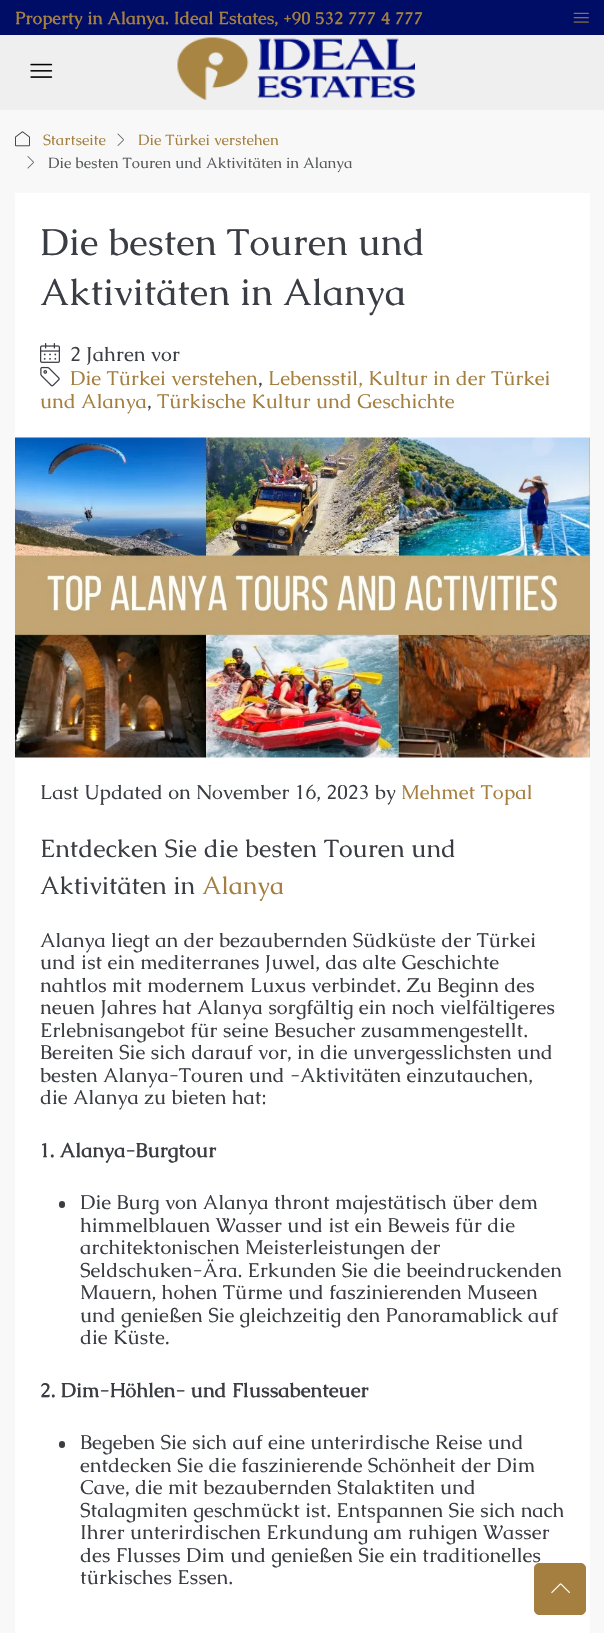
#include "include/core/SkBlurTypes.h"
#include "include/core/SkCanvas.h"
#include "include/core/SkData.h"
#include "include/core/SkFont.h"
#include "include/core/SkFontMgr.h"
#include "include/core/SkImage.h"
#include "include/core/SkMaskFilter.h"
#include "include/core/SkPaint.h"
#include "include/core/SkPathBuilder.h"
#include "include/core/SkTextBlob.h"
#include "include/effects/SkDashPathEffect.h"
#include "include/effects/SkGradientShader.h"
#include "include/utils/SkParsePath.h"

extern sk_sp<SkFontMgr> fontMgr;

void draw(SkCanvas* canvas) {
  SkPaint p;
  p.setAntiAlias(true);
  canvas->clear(SkColorSetRGB(248, 248, 248));
  p.setColor(SkColorSetRGB(0, 13, 102));
  canvas->drawRect(SkRect::MakeLTRB(0, 0, 604, 35), p);
  canvas->drawImageRect(SkImages::DeferredFromEncodedData(SkData::MakeFromFileName("images/1.png")), SkRect::MakeLTRB(573, 12, 589, 23), SkSamplingOptions());
  p.setColor(SkColorSetRGB(239, 239, 239));
  canvas->drawRect(SkRect::MakeLTRB(0, 35, 604, 110), p);
  canvas->drawImageRect(SkImages::DeferredFromEncodedData(SkData::MakeFromFileName("images/2.png")), SkRect::MakeLTRB(30, 63, 53, 78), SkSamplingOptions());
  canvas->drawImageRect(SkImages::DeferredFromEncodedData(SkData::MakeFromFileName("images/3.png")), SkRect::MakeLTRB(177, 37, 415, 100), SkSamplingOptions());
  canvas->drawImageRect(SkImages::DeferredFromEncodedData(SkData::MakeFromFileName("images/4.png")), SkRect::MakeLTRB(15, 131, 30, 147), SkSamplingOptions());
  canvas->drawImageRect(SkImages::DeferredFromEncodedData(SkData::MakeFromFileName("images/5.png")), SkRect::MakeLTRB(117, 133, 124, 146), SkSamplingOptions());
  canvas->drawImageRect(SkImages::DeferredFromEncodedData(SkData::MakeFromFileName("images/6.png")), SkRect::MakeLTRB(27, 156, 34, 169), SkSamplingOptions());
  p.setColor(SK_ColorWHITE);
  canvas->drawRect(SkRect::MakeLTRB(15, 193, 590, 1633), p);
  canvas->drawImageRect(SkImages::DeferredFromEncodedData(SkData::MakeFromFileName("images/7.png")), SkRect::MakeLTRB(40, 343, 60, 363), SkSamplingOptions());
  canvas->drawImageRect(SkImages::DeferredFromEncodedData(SkData::MakeFromFileName("images/8.png")), SkRect::MakeLTRB(40, 366, 60, 387), SkSamplingOptions());
  canvas->drawImageRect(SkImages::DeferredFromEncodedData(SkData::MakeFromFileName("images/9.png")), SkRect::MakeLTRB(15, 437, 590, 758), SkSamplingOptions());
  p.setColor(SkColorSetRGB(59, 61, 68));
  canvas->drawRoundRect(SkRect::MakeLTRB(59, 1201, 65, 1208), 3, 3, p);
  canvas->drawRoundRect(SkRect::MakeLTRB(59, 1441, 65, 1448), 3, 3, p);
  SkFont font1(fontMgr->matchFamilyStyle("Caudex", SkFontStyle::Bold()), 17.5f);
  font1.setSubpixel(true);
  p.setColor(SkColorSetRGB(165, 127, 63));
  canvas->drawString("Property in Alanya. Ideal Estates, +90 532 777 4 777", 15, 24, font1, p);
  SkFont font2(fontMgr->matchFamilyStyle("Caudex", SkFontStyle::Normal()), 15);
  font2.setSubpixel(true);
  canvas->drawString("Startseite", 43, 145, font2, p);
  canvas->drawString("Die Türkei verstehen", 138, 145, font2, p);
  p.setColor(SkColorSetRGB(87, 90, 93));
  canvas->drawString("Die besten Touren und Aktivitäten in Alanya", 48, 168, font2, p);
  SkFont font3(fontMgr->matchFamilyStyle("Caudex", SkFontStyle::Normal()), 37.5f);
  font3.setSubpixel(true);
  p.setColor(SkColorSetRGB(59, 61, 68));
  canvas->drawString("Die besten Touren und", 40, 255, font3, p);
  canvas->drawString("Aktivitäten in Alanya", 40, 305, font3, p);
  SkFont font4(fontMgr->matchFamilyStyle("Caudex", SkFontStyle::Normal()), 20);
  font4.setSubpixel(true);
  canvas->drawString("2 Jahren vor", 70, 361, font4, p);
  p.setColor(SkColorSetRGB(165, 127, 63));
  canvas->drawString("Die Türkei verstehen", 70, 385, font4, p);
  p.setColor(SkColorSetRGB(59, 61, 68));
  canvas->drawString(",", 258, 385, font4, p);
  p.setColor(SkColorSetRGB(165, 127, 63));
  canvas->drawString("Lebensstil, Kultur in der Türkei", 268, 385, font4, p);
  canvas->drawString("und Alanya", 40, 408, font4, p);
  p.setColor(SkColorSetRGB(59, 61, 68));
  canvas->drawString(",", 147, 408, font4, p);
  p.setColor(SkColorSetRGB(165, 127, 63));
  canvas->drawString("Türkische Kultur und Geschichte", 157, 408, font4, p);
  p.setColor(SkColorSetRGB(59, 61, 68));
  canvas->drawString("Last Updated on November 16, 2023 by", 40, 799, font4, p);
  p.setColor(SkColorSetRGB(165, 127, 63));
  canvas->drawString("Mehmet Topal", 401, 799, font4, p);
  SkFont font5(fontMgr->matchFamilyStyle("Caudex", SkFontStyle::Normal()), 25);
  font5.setSubpixel(true);
  p.setColor(SkColorSetRGB(59, 61, 68));
  canvas->drawString("Entdecken Sie die besten Touren und", 40, 857, font5, p);
  canvas->drawString("Aktivitäten in", 40, 894, font5, p);
  p.setColor(SkColorSetRGB(165, 127, 63));
  canvas->drawString("Alanya", 202, 894, font5, p);
  p.setColor(SkColorSetRGB(59, 61, 68));
  canvas->drawString("Alanya liegt an der bezaubernden Südküste der Türkei", 40, 947, font4, p);
  canvas->drawString("und ist ein mediterranes Juwel, das alte Geschichte", 40, 969, font4, p);
  canvas->drawString("nahtlos mit modernem Luxus verbindet. Zu Beginn des", 40, 992, font4, p);
  canvas->drawString("neuen Jahres hat Alanya sorgfältig ein noch vielfältigeres", 40, 1014, font4, p);
  canvas->drawString("Erlebnisangebot für seine Besucher zusammengestellt.", 40, 1037, font4, p);
  canvas->drawString("Bereiten Sie sich darauf vor, in die unvergesslichsten und", 40, 1059, font4, p);
  canvas->drawString("besten Alanya-Touren und -Aktivitäten einzutauchen,", 40, 1082, font4, p);
  canvas->drawString("die Alanya zu bieten hat:", 40, 1104, font4, p);
  SkFont font6(fontMgr->matchFamilyStyle("Caudex", SkFontStyle::Bold()), 20);
  font6.setSubpixel(true);
  canvas->drawString("1. Alanya-Burgtour", 40, 1157, font6, p);
  canvas->drawString("Die Burg von Alanya thront majestätisch über dem", 80, 1209, font4, p);
  canvas->drawString("himmelblauen Wasser und ist ein Beweis für die", 80, 1232, font4, p);
  canvas->drawString("architektonischen Meisterleistungen der", 80, 1254, font4, p);
  canvas->drawString("Seldschuken-Ära. Erkunden Sie die beeindruckenden", 80, 1277, font4, p);
  canvas->drawString("Mauern, hohen Türme und faszinierenden Museen", 80, 1299, font4, p);
  canvas->drawString("und genießen Sie gleichzeitig den Panoramablick auf", 80, 1322, font4, p);
  canvas->drawString("die Küste.", 80, 1344, font4, p);
  canvas->drawString("2. Dim-Höhlen- und Flussabenteuer", 40, 1397, font6, p);
  canvas->drawString("Begeben Sie sich auf eine unterirdische Reise und", 80, 1449, font4, p);
  canvas->drawString("entdecken Sie die faszinierende Schönheit der Dim", 80, 1472, font4, p);
  canvas->drawString("Cave, die mit bezaubernden Stalaktiten und", 80, 1494, font4, p);
  canvas->drawString("Stalagmiten geschmückt ist. Entspannen Sie sich nach", 80, 1517, font4, p);
  canvas->drawString("Ihrer unterirdischen Erkundung am ruhigen Wasser", 80, 1539, font4, p);
  canvas->drawString("des Flusses Dim und genießen Sie ein traditionelles", 80, 1562, font4, p);
  canvas->drawString("türkisches Essen.", 80, 1584, font4, p);
  p.setColor(SkColorSetRGB(165, 127, 63));
  canvas->drawRoundRect(SkRect::MakeLTRB(534.5f, 1563.5f, 585.5f, 1614.5f), 4.5f, 4.5f, p);
  p.setStyle(SkPaint::kStroke_Style);
  p.setStrokeWidth(1);
  canvas->drawRoundRect(SkRect::MakeLTRB(534.5f, 1563.5f, 585.5f, 1614.5f), 4.5f, 4.5f, p);
  canvas->drawImageRect(SkImages::DeferredFromEncodedData(SkData::MakeFromFileName("images/10.png")), SkRect::MakeLTRB(551, 1583, 570, 1594), SkSamplingOptions());
}
